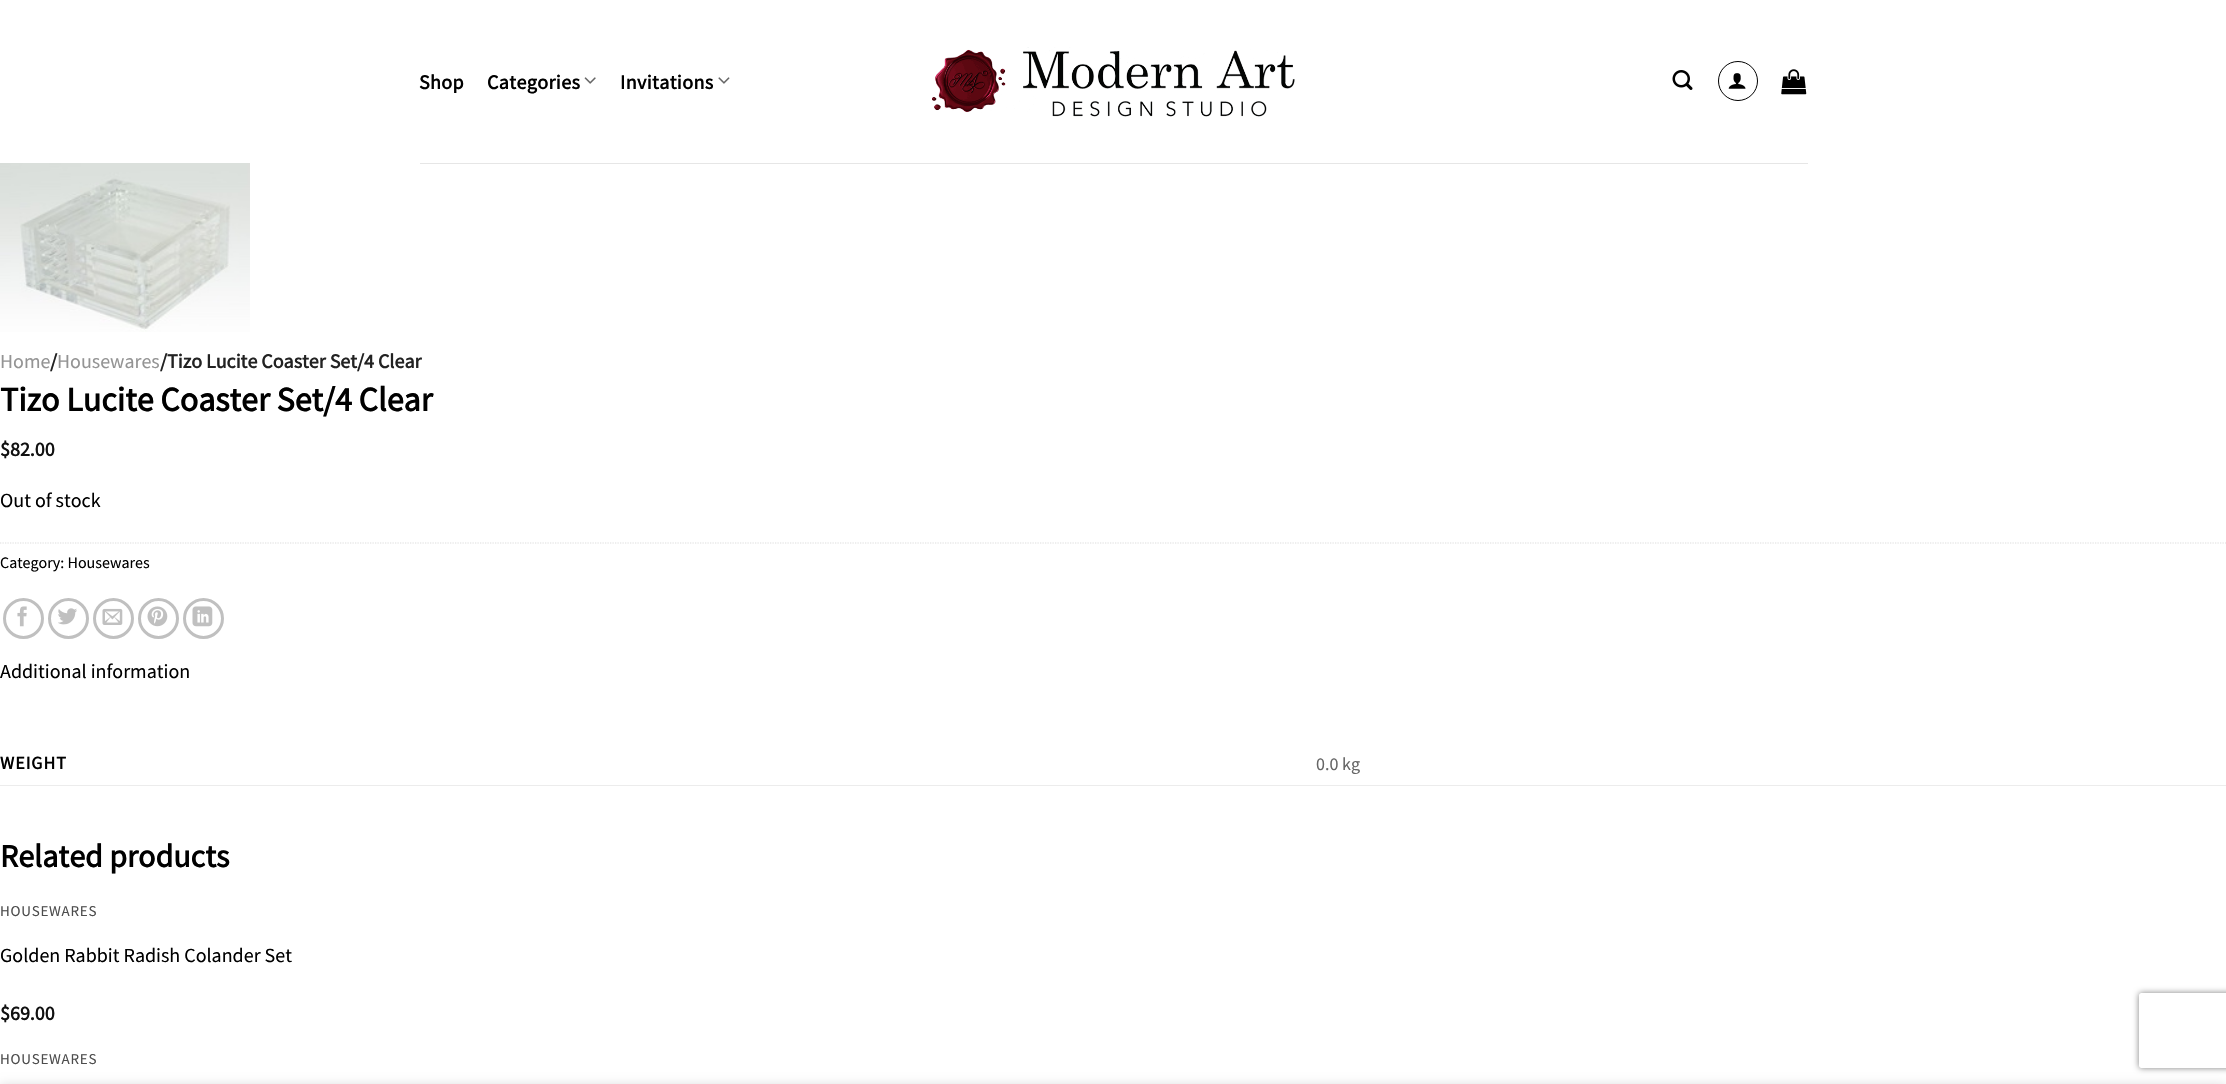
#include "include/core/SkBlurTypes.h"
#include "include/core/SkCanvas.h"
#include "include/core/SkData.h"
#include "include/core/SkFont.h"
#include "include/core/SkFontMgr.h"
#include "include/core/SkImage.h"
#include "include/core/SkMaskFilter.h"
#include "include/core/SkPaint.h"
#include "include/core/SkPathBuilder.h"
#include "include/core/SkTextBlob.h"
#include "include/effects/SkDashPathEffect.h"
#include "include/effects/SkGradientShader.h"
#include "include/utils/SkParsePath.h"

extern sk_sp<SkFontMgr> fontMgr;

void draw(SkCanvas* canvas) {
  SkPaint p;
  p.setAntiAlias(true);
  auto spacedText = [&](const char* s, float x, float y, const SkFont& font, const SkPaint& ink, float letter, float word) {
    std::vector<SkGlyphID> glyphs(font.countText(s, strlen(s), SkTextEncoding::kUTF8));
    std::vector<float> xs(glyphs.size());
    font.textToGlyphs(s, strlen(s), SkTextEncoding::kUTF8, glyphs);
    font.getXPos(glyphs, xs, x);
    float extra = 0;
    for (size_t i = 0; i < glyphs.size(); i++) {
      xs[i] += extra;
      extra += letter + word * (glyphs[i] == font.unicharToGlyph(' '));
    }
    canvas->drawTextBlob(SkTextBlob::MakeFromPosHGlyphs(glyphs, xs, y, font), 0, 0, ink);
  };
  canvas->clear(SK_ColorWHITE);
  canvas->drawImageRect(SkImages::DeferredFromEncodedData(SkData::MakeFromFileName("images/1.png")), SkRect::MakeLTRB(584, 77, 596, 84), SkSamplingOptions());
  canvas->drawImageRect(SkImages::DeferredFromEncodedData(SkData::MakeFromFileName("images/2.png")), SkRect::MakeLTRB(718, 77, 730, 84), SkSamplingOptions());
  canvas->drawImageRect(SkImages::DeferredFromEncodedData(SkData::MakeFromFileName("images/3.png")), SkRect::MakeLTRB(932, 47, 1295, 117), SkSamplingOptions());
  canvas->drawImageRect(SkImages::DeferredFromEncodedData(SkData::MakeFromFileName("images/4.png")), SkRect::MakeLTRB(1672, 70, 1693, 90), SkSamplingOptions());
  p.setStyle(SkPaint::kStroke_Style);
  p.setStrokeWidth(1);
  p.setColor(SK_ColorBLACK);
  canvas->drawCircle(1738, 81, 19.5f, p);
  canvas->drawImageRect(SkImages::DeferredFromEncodedData(SkData::MakeFromFileName("images/5.png")), SkRect::MakeLTRB(1728, 73, 1746, 89), SkSamplingOptions());
  canvas->drawImageRect(SkImages::DeferredFromEncodedData(SkData::MakeFromFileName("images/6.png")), SkRect::MakeLTRB(1781, 69, 1807, 95), SkSamplingOptions());
  p.setStyle(SkPaint::kFill_Style);
  p.setColor(SkColorSetRGB(230, 230, 230));
  canvas->drawRect(SkRect::MakeLTRB(420, 163, 1808, 164), p);
  canvas->drawImageRect(SkImages::DeferredFromEncodedData(SkData::MakeFromFileName("images/7.png")), SkRect::MakeLTRB(0, 163, 250, 332), SkSamplingOptions());
  p.setStyle(SkPaint::kStroke_Style);
  p.setStrokeWidth(1.2f);
  p.setColor(SkColorSetRGB(221, 221, 221));
  p.setPathEffect(SkDashPathEffect::Make({{1.25f, 1.25f}}, 0));
  canvas->drawPath(SkPathBuilder().moveTo(0, 543).lineTo(2226, 543).detach(), p);
  p.setPathEffect(nullptr);
  p.setStrokeWidth(3);
  p.setColor(SkColorSetRGB(192, 192, 192));
  canvas->drawCircle(23.5f, 618.5f, 19, p);
  canvas->drawImageRect(SkImages::DeferredFromEncodedData(SkData::MakeFromFileName("images/8.png")), SkRect::MakeLTRB(17, 606, 27, 627), SkSamplingOptions());
  canvas->drawCircle(68.5f, 618.5f, 19, p);
  canvas->drawImageRect(SkImages::DeferredFromEncodedData(SkData::MakeFromFileName("images/9.png")), SkRect::MakeLTRB(58, 608, 77, 625), SkSamplingOptions());
  canvas->drawCircle(113.5f, 618.5f, 19, p);
  canvas->drawImageRect(SkImages::DeferredFromEncodedData(SkData::MakeFromFileName("images/10.png")), SkRect::MakeLTRB(102, 608, 123, 625), SkSamplingOptions());
  canvas->drawCircle(158.5f, 618.5f, 19, p);
  canvas->drawImageRect(SkImages::DeferredFromEncodedData(SkData::MakeFromFileName("images/11.png")), SkRect::MakeLTRB(147, 606, 168, 627), SkSamplingOptions());
  canvas->drawCircle(203.5f, 618.5f, 19, p);
  canvas->drawImageRect(SkImages::DeferredFromEncodedData(SkData::MakeFromFileName("images/12.png")), SkRect::MakeLTRB(192, 606, 213, 627), SkSamplingOptions());
  p.setStyle(SkPaint::kFill_Style);
  p.setColor(SkColorSetRGB(236, 236, 236));
  canvas->drawRect(SkRect::MakeLTRB(0, 785, 2226, 786), p);
  canvas->save();
  canvas->clipPath(SkPathBuilder(SkPathFillType::kEvenOdd).moveTo(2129, 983).lineTo(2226, 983).lineTo(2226, 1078).lineTo(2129, 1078).close().moveTo(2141.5f, 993).lineTo(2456.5f, 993).cubicTo(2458, 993, 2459, 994, 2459, 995.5f).lineTo(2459, 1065.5f).cubicTo(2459, 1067, 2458, 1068, 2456.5f, 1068).lineTo(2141.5f, 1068).cubicTo(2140, 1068, 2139, 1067, 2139, 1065.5f).lineTo(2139, 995.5f).cubicTo(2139, 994, 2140, 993, 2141.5f, 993).close().detach(), true);
  p.setColor(SkColorSetRGB(128, 128, 128));
  p.setMaskFilter(SkMaskFilter::MakeBlur(kNormal_SkBlurStyle, 3));
  canvas->drawRoundRect(SkRect::MakeLTRB(2139, 993, 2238, 1068), 2.5f, 2.5f, p);
  p.setMaskFilter(nullptr);
  canvas->restore();
  p.setColor(SkColorSetARGB(36, 0, 0, 0));
  p.setMaskFilter(SkMaskFilter::MakeBlur(kNormal_SkBlurStyle, 5.5f));
  canvas->drawRect(SkRect::MakeLTRB(0, 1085, 2226, 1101), p);
  p.setMaskFilter(nullptr);
  SkFont font1(fontMgr->matchFamilyStyle("Source Sans Pro", SkFontStyle::Bold()), 20);
  font1.setSubpixel(true);
  p.setColor(SK_ColorBLACK);
  spacedText("Shop", 419, 89, font1, p, 0.4f, 0);
  spacedText("Categories", 487, 89, font1, p, 0.4f, 0);
  spacedText("Invitations", 620, 89, font1, p, 0.4f, 0);
  SkFont font2(fontMgr->matchFamilyStyle("Source Sans Pro", SkFontStyle::Normal()), 20);
  font2.setSubpixel(true);
  p.setColor(SkColorSetRGB(148, 148, 148));
  canvas->drawString("Home", 0, 368, font2, p);
  p.setColor(SkColorSetRGB(34, 34, 34));
  canvas->drawString("/", 50, 368, font1, p);
  p.setColor(SkColorSetRGB(148, 148, 148));
  canvas->drawString("Housewares", 57, 368, font2, p);
  p.setColor(SkColorSetRGB(34, 34, 34));
  canvas->drawString("/Tizo Lucite Coaster Set/4 Clear", 160, 368, font1, p);
  SkFont font3(fontMgr->matchFamilyStyle("Source Sans Pro", SkFontStyle::Bold()), 34);
  font3.setSubpixel(true);
  p.setColor(SK_ColorBLACK);
  canvas->drawString("Tizo Lucite Coaster Set/4 Clear", 0, 411, font3, p);
  p.setColor(SkColorSetRGB(17, 17, 17));
  canvas->drawString("$82.00", 0, 456, font1, p);
  p.setColor(SK_ColorBLACK);
  canvas->drawString("Out of stock", 0, 507, font2, p);
  SkFont font4(fontMgr->matchFamilyStyle("Source Sans Pro", SkFontStyle::Normal()), 16);
  font4.setSubpixel(true);
  canvas->drawString("Category: Housewares", 0, 568, font4, p);
  canvas->drawString("Additional information", 0, 678, font2, p);
  SkFont font5(fontMgr->matchFamilyStyle("Source Sans Pro", SkFontStyle::Bold()), 18);
  font5.setSubpixel(true);
  spacedText("WEIGHT", 0, 769, font5, p, 1, 0);
  SkFont font6(fontMgr->matchFamilyStyle("Source Sans Pro", SkFontStyle::Normal()), 18);
  font6.setSubpixel(true);
  p.setColor(SkColorSetRGB(102, 102, 102));
  canvas->drawString("0.0 kg", 1316, 770, font6, p);
  SkFont font7(fontMgr->matchFamilyStyle("Source Sans Pro", SkFontStyle::Bold()), 32);
  font7.setSubpixel(true);
  p.setColor(SK_ColorBLACK);
  canvas->drawString("Related products", 0, 867, font7, p);
  SkFont font8(fontMgr->matchFamilyStyle("Source Sans Pro", SkFontStyle::Normal()), 15);
  font8.setSubpixel(true);
  p.setColor(SkColorSetRGB(77, 77, 77));
  spacedText("HOUSEWARES", 0, 916, font8, p, 0.75f, 0);
  p.setColor(SK_ColorBLACK);
  canvas->drawString("Golden Rabbit Radish Colander Set", 0, 962, font2, p);
  p.setColor(SkColorSetRGB(17, 17, 17));
  canvas->drawString("$69.00", 0, 1020, font1, p);
  p.setColor(SkColorSetRGB(77, 77, 77));
  spacedText("HOUSEWARES", 0, 1064, font8, p, 0.75f, 0);
}
